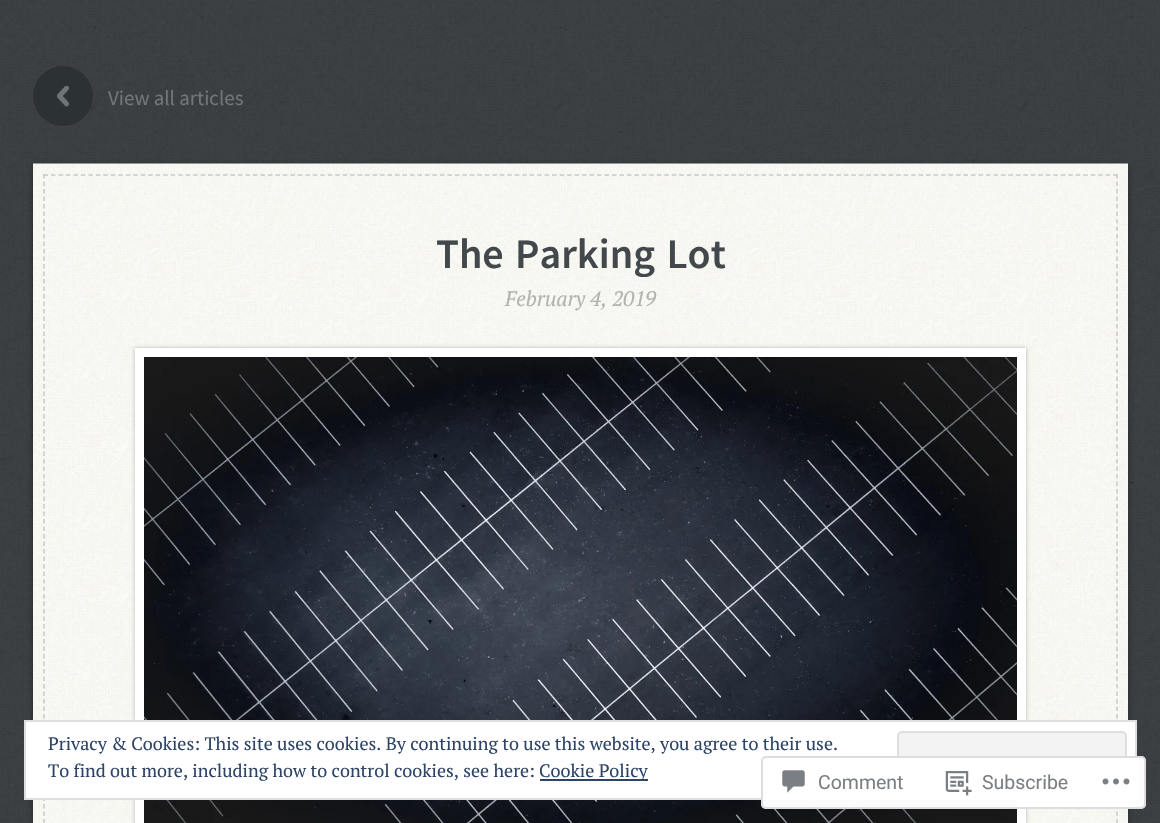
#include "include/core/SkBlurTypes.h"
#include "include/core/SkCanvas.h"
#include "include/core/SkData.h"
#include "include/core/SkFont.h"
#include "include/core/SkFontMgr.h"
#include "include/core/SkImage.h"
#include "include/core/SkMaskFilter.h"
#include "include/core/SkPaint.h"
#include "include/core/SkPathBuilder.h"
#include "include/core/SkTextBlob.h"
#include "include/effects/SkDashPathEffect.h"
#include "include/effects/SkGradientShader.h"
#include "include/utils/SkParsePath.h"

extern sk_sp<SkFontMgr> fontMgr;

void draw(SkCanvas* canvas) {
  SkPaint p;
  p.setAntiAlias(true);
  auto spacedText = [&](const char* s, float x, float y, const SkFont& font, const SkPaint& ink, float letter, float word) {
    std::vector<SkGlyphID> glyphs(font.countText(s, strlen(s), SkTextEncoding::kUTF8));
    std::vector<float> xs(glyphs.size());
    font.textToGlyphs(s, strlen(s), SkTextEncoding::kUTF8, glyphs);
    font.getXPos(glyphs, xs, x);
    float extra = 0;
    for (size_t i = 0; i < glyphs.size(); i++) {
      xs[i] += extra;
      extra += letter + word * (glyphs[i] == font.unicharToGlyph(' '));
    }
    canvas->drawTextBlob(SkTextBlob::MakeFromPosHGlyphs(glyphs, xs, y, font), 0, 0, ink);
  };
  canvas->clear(SK_ColorWHITE);
  canvas->drawImageRect(SkImages::DeferredFromEncodedData(SkData::MakeFromFileName("images/1.png")), SkRect::MakeLTRB(0, 0, 1160, 823), SkSamplingOptions());
  p.setColor(SkColorSetRGB(44, 49, 51));
  canvas->drawCircle(63, 96, 30, p);
  canvas->drawImageRect(SkImages::DeferredFromEncodedData(SkData::MakeFromFileName("images/2.png")), SkRect::MakeLTRB(57, 86, 69, 107), SkSamplingOptions());
  p.setColor(SkColorSetARGB(92, 0, 0, 0));
  p.setMaskFilter(SkMaskFilter::MakeBlur(kNormal_SkBlurStyle, 3));
  canvas->drawRect(SkRect::MakeLTRB(33, 165, 1128, 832), p);
  p.setMaskFilter(nullptr);
  canvas->drawImageRect(SkImages::DeferredFromEncodedData(SkData::MakeFromFileName("images/3.png")), SkRect::MakeLTRB(33, 163, 1128, 823), SkSamplingOptions());
  p.setStyle(SkPaint::kStroke_Style);
  p.setStrokeWidth(1.5f);
  p.setColor(SkColorSetRGB(201, 201, 199));
  p.setPathEffect(SkDashPathEffect::Make({{4.5f, 2.98f}}, 0));
  canvas->drawPath(SkPathBuilder().moveTo(43.5f, 175).lineTo(1117.5f, 175).detach(), p);
  p.setPathEffect(nullptr);
  p.setPathEffect(SkDashPathEffect::Make({{4.5f, 3}}, 0));
  canvas->drawPath(SkPathBuilder().moveTo(1117, 174).lineTo(1117, 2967).detach(), p);
  p.setPathEffect(nullptr);
  p.setPathEffect(SkDashPathEffect::Make({{4.5f, 3}}, 0));
  canvas->drawPath(SkPathBuilder().moveTo(44, 174).lineTo(44, 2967).detach(), p);
  p.setPathEffect(nullptr);
  p.setStyle(SkPaint::kFill_Style);
  p.setColor(SkColorSetARGB(66, 0, 0, 0));
  p.setMaskFilter(SkMaskFilter::MakeBlur(kNormal_SkBlurStyle, 2));
  canvas->drawRect(SkRect::MakeLTRB(135, 348, 1026, 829), p);
  p.setMaskFilter(nullptr);
  p.setColor(SK_ColorWHITE);
  canvas->drawRect(SkRect::MakeLTRB(135, 348, 1026, 823), p);
  canvas->drawImageRect(SkImages::DeferredFromEncodedData(SkData::MakeFromFileName("images/4.png")), SkRect::MakeLTRB(144, 357, 1017, 823), SkSamplingOptions());
  canvas->drawRect(SkRect::MakeLTRB(25, 721, 1136, 799), p);
  p.setStyle(SkPaint::kStroke_Style);
  p.setStrokeWidth(2);
  p.setColor(SkColorSetRGB(222, 222, 222));
  canvas->drawRect(SkRect::MakeLTRB(25, 721, 1136, 799), p);
  p.setStyle(SkPaint::kFill_Style);
  p.setColor(SkColorSetRGB(243, 243, 243));
  canvas->drawRoundRect(SkRect::MakeLTRB(898, 732, 1126, 788), 4, 4, p);
  p.setStyle(SkPaint::kStroke_Style);
  p.setColor(SkColorSetRGB(222, 222, 222));
  canvas->drawRoundRect(SkRect::MakeLTRB(898, 732, 1126, 788), 4, 4, p);
  p.setStyle(SkPaint::kFill_Style);
  p.setColor(SkColorSetARGB(250, 255, 255, 255));
  canvas->drawRoundRect(SkRect::MakeLTRB(761, 756, 1146, 809), 5, 5, p);
  p.setStyle(SkPaint::kStroke_Style);
  p.setColor(SkColorSetARGB(250, 220, 220, 222));
  canvas->drawRoundRect(SkRect::MakeLTRB(762, 757, 1145, 808), 4, 4, p);
  canvas->drawImageRect(SkImages::DeferredFromEncodedData(SkData::MakeFromFileName("images/5.png")), SkRect::MakeLTRB(782, 770, 805, 793), SkSamplingOptions());
  canvas->drawImageRect(SkImages::DeferredFromEncodedData(SkData::MakeFromFileName("images/6.png")), SkRect::MakeLTRB(945, 771, 972, 796), SkSamplingOptions());
  canvas->drawImageRect(SkImages::DeferredFromEncodedData(SkData::MakeFromFileName("images/7.png")), SkRect::MakeLTRB(1102, 778, 1130, 785), SkSamplingOptions());
  p.setStyle(SkPaint::kFill_Style);
  p.setColor(SkColorSetRGB(46, 68, 103));
  canvas->drawRect(SkRect::MakeLTRB(540, 779, 648, 781), p);
  SkFont font1(fontMgr->matchFamilyStyle("Source Sans Pro", SkFontStyle::Normal()), 21);
  font1.setSubpixel(true);
  p.setColor(SkColorSetRGB(114, 118, 120));
  canvas->drawString("View all articles", 108, 105, font1, p);
  SkFont font2(fontMgr->matchFamilyStyle("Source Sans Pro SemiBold", SkFontStyle(600, SkFontStyle::kNormal_Width, SkFontStyle::kUpright_Slant)), 42);
  font2.setSubpixel(true);
  p.setColor(SkColorSetRGB(66, 72, 75));
  spacedText("The Parking Lot", 436, 268, font2, p, 0, 3);
  SkFont font3(fontMgr->matchFamilyStyle("PT Serif", SkFontStyle::Italic()), 21);
  font3.setSubpixel(true);
  p.setColor(SkColorSetRGB(178, 178, 174));
  canvas->drawString("February 4, 2019", 505, 306, font3, p);
  SkFont font4(fontMgr->matchFamilyStyle("Roboto", SkFontStyle::Normal()), 19.5f);
  font4.setSubpixel(true);
  p.setColor(SkColorSetRGB(123, 127, 132));
  canvas->drawString("Comment", 818, 789, font4, p);
  canvas->drawString("Subscribe", 982, 789, font4, p);
  SkFont font5(fontMgr->matchFamilyStyle("PT Serif", SkFontStyle::Normal()), 18);
  font5.setSubpixel(true);
  p.setColor(SkColorSetRGB(46, 68, 103));
  canvas->drawString("Privacy & Cookies: This site uses cookies. By continuing to use this website, you agree to their use.", 48, 750, font5, p);
  canvas->drawString("To find out more, including how to control cookies, see here:", 48, 777, font5, p);
  canvas->drawString("Cookie Policy", 539, 777, font5, p);
}
